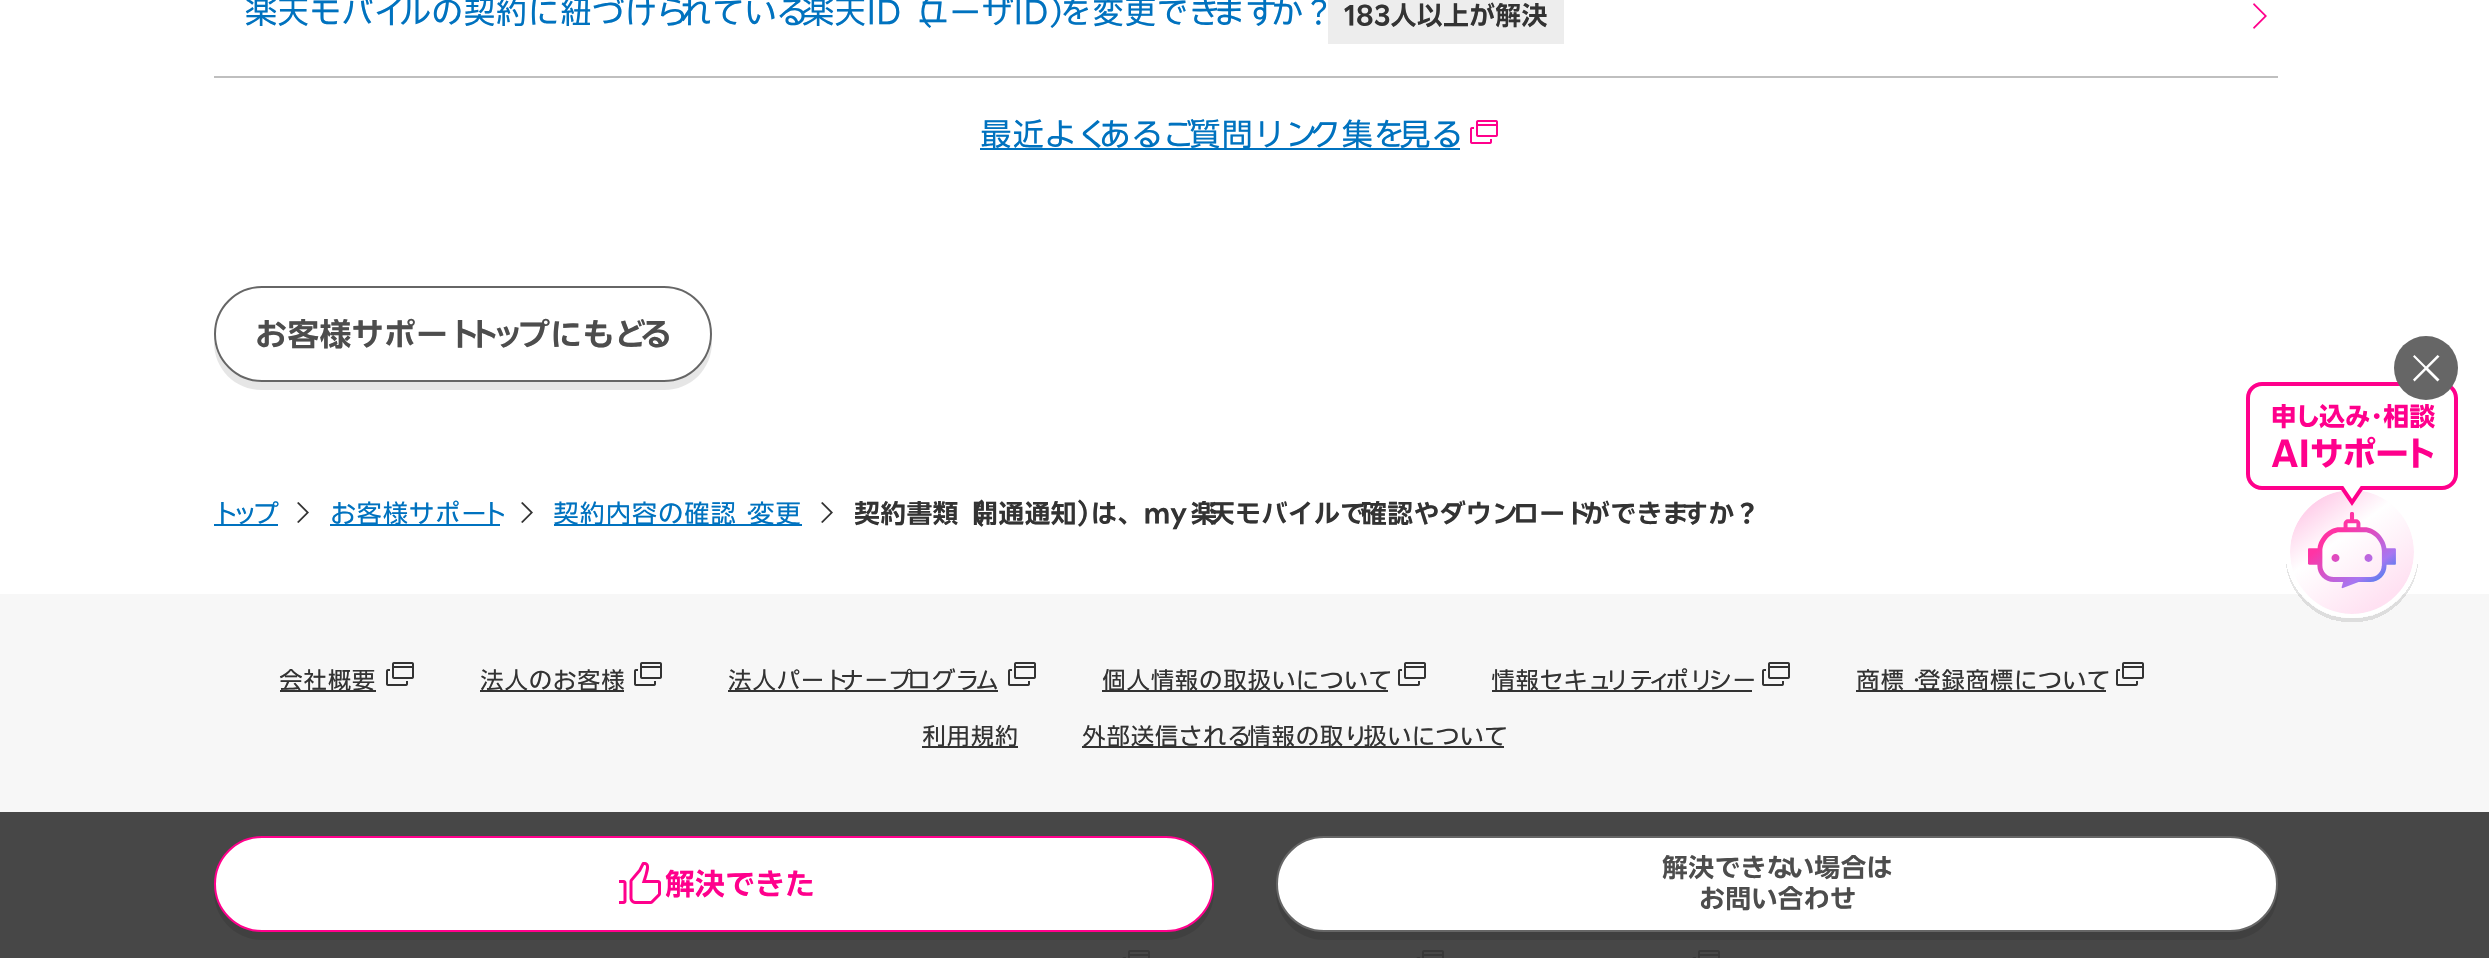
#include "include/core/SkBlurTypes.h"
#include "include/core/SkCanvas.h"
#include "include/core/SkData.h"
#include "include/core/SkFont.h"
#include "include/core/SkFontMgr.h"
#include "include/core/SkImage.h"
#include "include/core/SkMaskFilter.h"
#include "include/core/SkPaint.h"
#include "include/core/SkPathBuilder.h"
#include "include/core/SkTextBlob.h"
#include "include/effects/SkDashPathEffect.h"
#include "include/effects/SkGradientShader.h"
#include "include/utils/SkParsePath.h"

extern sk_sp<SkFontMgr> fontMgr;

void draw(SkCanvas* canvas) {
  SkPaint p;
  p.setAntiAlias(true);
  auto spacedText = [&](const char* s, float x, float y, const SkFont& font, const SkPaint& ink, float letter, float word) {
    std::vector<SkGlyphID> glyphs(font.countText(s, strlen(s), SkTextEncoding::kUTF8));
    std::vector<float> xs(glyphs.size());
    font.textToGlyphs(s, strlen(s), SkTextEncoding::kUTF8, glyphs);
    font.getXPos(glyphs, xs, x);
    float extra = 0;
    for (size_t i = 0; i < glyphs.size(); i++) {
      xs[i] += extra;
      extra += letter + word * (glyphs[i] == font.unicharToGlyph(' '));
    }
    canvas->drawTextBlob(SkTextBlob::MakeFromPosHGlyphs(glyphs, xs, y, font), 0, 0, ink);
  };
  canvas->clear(SK_ColorWHITE);
  p.setColor(SkColorSetRGB(71, 71, 71));
  canvas->drawRect(SkRect::MakeLTRB(0, 812, 2489, 958), p);
  p.setColor(SkColorSetRGB(191, 191, 191));
  canvas->drawRect(SkRect::MakeLTRB(214, 76, 2278, 78), p);
  p.setColor(SkColorSetRGB(237, 237, 237));
  canvas->drawRect(SkRect::MakeLTRB(1328, 0, 1564, 44), p);
  p.setColor(SkColorSetRGB(255, 0, 140));
  canvas->drawPath(SkPathBuilder().moveTo(2254, 3).lineTo(2253, 4.5f).lineTo(2264.5f, 16).lineTo(2253, 27.5f).lineTo(2254, 29).lineTo(2267, 16).close().detach(), p);
  p.setColor(SkColorSetRGB(0, 114, 191));
  canvas->drawRect(SkRect::MakeLTRB(980, 148, 1460, 150), p);
  canvas->drawImageRect(SkImages::DeferredFromEncodedData(SkData::MakeFromFileName("images/1.png")), SkRect::MakeLTRB(1470, 120, 1498, 144), SkSamplingOptions());
  p.setColor(SkColorSetRGB(230, 230, 230));
  canvas->drawPath(SkPathBuilder().moveTo(214, 338).lineTo(214, 342).cubicTo(214, 369, 235, 390, 262, 390).lineTo(664, 390).cubicTo(691, 390, 712, 369, 712, 342).lineTo(712, 338).cubicTo(710, 363, 689, 382, 664, 382).lineTo(262, 382).cubicTo(237, 382, 216, 363, 214, 338).close().detach(), p);
  p.setColor(SK_ColorWHITE);
  canvas->drawRoundRect(SkRect::MakeLTRB(215, 287, 711, 381), 47, 47, p);
  p.setStyle(SkPaint::kStroke_Style);
  p.setStrokeWidth(2);
  p.setColor(SkColorSetRGB(102, 102, 102));
  canvas->drawRoundRect(SkRect::MakeLTRB(215, 287, 711, 381), 47, 47, p);
  canvas->drawImageRect(SkImages::DeferredFromEncodedData(SkData::MakeFromFileName("images/2.png")), SkRect::MakeLTRB(2246, 382, 2458, 490), SkSamplingOptions());
  p.setStyle(SkPaint::kFill_Style);
  canvas->drawCircle(2426, 368, 32, p);
  p.setColor(SK_ColorWHITE);
  canvas->drawPath(SkPathBuilder(SkPathFillType::kEvenOdd).moveTo(2426, 370).lineTo(2437.5f, 381.5f).lineTo(2439.5f, 379.5f).lineTo(2428, 368).lineTo(2439.5f, 356.5f).lineTo(2437.5f, 355).lineTo(2426, 366.5f).lineTo(2414.5f, 355).lineTo(2413, 356.5f).lineTo(2424.5f, 368).lineTo(2413, 379.5f).lineTo(2414.5f, 381.5f).close().detach(), p);
  p.setColor(SkColorSetRGB(247, 247, 247));
  canvas->drawRect(SkRect::MakeLTRB(0, 594, 2489, 812), p);
  canvas->drawImageRect(SkImages::DeferredFromEncodedData(SkData::MakeFromFileName("images/3.png")), SkRect::MakeLTRB(2286, 490, 2418, 622), SkSamplingOptions());
  p.setColor(SkColorSetRGB(0, 114, 191));
  canvas->drawRect(SkRect::MakeLTRB(214, 524, 278, 526), p);
  p.setColor(SkColorSetRGB(51, 51, 51));
  canvas->drawPath(SkPathBuilder().moveTo(298.5f, 502).lineTo(297, 503).lineTo(306.5f, 512.5f).lineTo(297, 522).lineTo(298.5f, 523).lineTo(309, 512.5f).close().detach(), p);
  p.setColor(SkColorSetRGB(0, 114, 191));
  canvas->drawRect(SkRect::MakeLTRB(330, 524, 500, 526), p);
  p.setColor(SkColorSetRGB(51, 51, 51));
  canvas->drawPath(SkPathBuilder().moveTo(522.5f, 502).lineTo(521, 503).lineTo(530.5f, 512.5f).lineTo(521, 522).lineTo(522.5f, 523).lineTo(533, 512.5f).close().detach(), p);
  p.setColor(SkColorSetRGB(0, 114, 191));
  canvas->drawRect(SkRect::MakeLTRB(554, 524, 802, 526), p);
  p.setColor(SkColorSetRGB(51, 51, 51));
  canvas->drawPath(SkPathBuilder().moveTo(822.5f, 502).lineTo(821, 503).lineTo(830.5f, 512.5f).lineTo(821, 522).lineTo(822.5f, 523).lineTo(833, 512.5f).close().detach(), p);
  canvas->drawRect(SkRect::MakeLTRB(280, 690, 376, 692), p);
  canvas->drawImageRect(SkImages::DeferredFromEncodedData(SkData::MakeFromFileName("images/4.png")), SkRect::MakeLTRB(386, 662, 414, 686), SkSamplingOptions());
  canvas->drawRect(SkRect::MakeLTRB(480, 690, 624, 692), p);
  canvas->drawImageRect(SkImages::DeferredFromEncodedData(SkData::MakeFromFileName("images/4.png")), SkRect::MakeLTRB(634, 662, 662, 686), SkSamplingOptions());
  canvas->drawRect(SkRect::MakeLTRB(728, 690, 998, 692), p);
  canvas->drawImageRect(SkImages::DeferredFromEncodedData(SkData::MakeFromFileName("images/4.png")), SkRect::MakeLTRB(1008, 662, 1036, 686), SkSamplingOptions());
  canvas->drawRect(SkRect::MakeLTRB(1102, 690, 1388, 692), p);
  canvas->drawImageRect(SkImages::DeferredFromEncodedData(SkData::MakeFromFileName("images/4.png")), SkRect::MakeLTRB(1398, 662, 1426, 686), SkSamplingOptions());
  canvas->drawRect(SkRect::MakeLTRB(1492, 690, 1752, 692), p);
  canvas->drawImageRect(SkImages::DeferredFromEncodedData(SkData::MakeFromFileName("images/4.png")), SkRect::MakeLTRB(1762, 662, 1790, 686), SkSamplingOptions());
  canvas->drawRect(SkRect::MakeLTRB(1856, 690, 2106, 692), p);
  canvas->drawImageRect(SkImages::DeferredFromEncodedData(SkData::MakeFromFileName("images/4.png")), SkRect::MakeLTRB(2116, 662, 2144, 686), SkSamplingOptions());
  canvas->drawRect(SkRect::MakeLTRB(922, 746, 1018, 748), p);
  canvas->drawRect(SkRect::MakeLTRB(1082, 746, 1504, 748), p);
  canvas->drawImageRect(SkImages::DeferredFromEncodedData(SkData::MakeFromFileName("images/5.png")), SkRect::MakeLTRB(1122, 950, 1150, 958), SkSamplingOptions());
  canvas->drawImageRect(SkImages::DeferredFromEncodedData(SkData::MakeFromFileName("images/5.png")), SkRect::MakeLTRB(1416, 950, 1444, 958), SkSamplingOptions());
  canvas->drawImageRect(SkImages::DeferredFromEncodedData(SkData::MakeFromFileName("images/5.png")), SkRect::MakeLTRB(1692, 950, 1720, 958), SkSamplingOptions());
  p.setColor(SkColorSetRGB(64, 64, 64));
  canvas->drawPath(SkPathBuilder().moveTo(214, 888).cubicTo(212, 916, 234, 940, 262, 940).lineTo(1166, 940).cubicTo(1194, 940, 1216, 916, 1214, 888).cubicTo(1212, 913, 1191, 932, 1166, 932).lineTo(262, 932).cubicTo(237, 932, 216, 913, 214, 888).close().detach(), p);
  p.setColor(SK_ColorWHITE);
  canvas->drawRoundRect(SkRect::MakeLTRB(215, 837, 1213, 931), 47, 47, p);
  p.setStyle(SkPaint::kStroke_Style);
  p.setColor(SkColorSetRGB(255, 0, 140));
  canvas->drawRoundRect(SkRect::MakeLTRB(215, 837, 1213, 931), 47, 47, p);
  canvas->drawImageRect(SkImages::DeferredFromEncodedData(SkData::MakeFromFileName("images/6.png")), SkRect::MakeLTRB(619, 862, 661, 904), SkSamplingOptions());
  p.setStyle(SkPaint::kFill_Style);
  p.setColor(SkColorSetRGB(64, 64, 64));
  canvas->drawPath(SkPathBuilder().moveTo(1276, 888).cubicTo(1274, 916, 1296, 940, 1324, 940).lineTo(2230, 940).cubicTo(2258, 940, 2280, 916, 2278, 888).cubicTo(2276, 913, 2255, 932, 2230, 932).lineTo(1324, 932).cubicTo(1299, 932, 1278, 913, 1276, 888).close().detach(), p);
  p.setColor(SK_ColorWHITE);
  canvas->drawRoundRect(SkRect::MakeLTRB(1277, 837, 2277, 931), 47, 47, p);
  p.setStyle(SkPaint::kStroke_Style);
  p.setColor(SkColorSetRGB(102, 102, 102));
  canvas->drawRoundRect(SkRect::MakeLTRB(1277, 837, 2277, 931), 47, 47, p);
  SkFont font1(fontMgr->matchFamilyStyle("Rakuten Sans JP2", SkFontStyle::Normal()), 32);
  font1.setSubpixel(true);
  p.setStyle(SkPaint::kFill_Style);
  p.setColor(SkColorSetRGB(0, 114, 191));
  spacedText("楽天モバイ", 245, 24, font1, p, 0.2f, 0);
  spacedText("ルの契約に紐づけら", 399, 24, font1, p, 0.2f, 0);
  spacedText("れている", 680, 24, font1, p, 0.2f, 0);
  spacedText("楽天ID（", 802, 24, font1, p, 0.2f, 0);
  spacedText("ユーザID）", 917, 24, font1, p, 0.2f, 0);
  spacedText("を変更でき", 1060, 24, font1, p, 0.2f, 0);
  spacedText("ます", 1213, 24, font1, p, 0.2f, 0);
  spacedText("か？", 1271, 24, font1, p, 0.2f, 0);
  SkFont font2(fontMgr->matchFamilyStyle("Rakuten Sans JP2", SkFontStyle(600, SkFontStyle::kNormal_Width, SkFontStyle::kUpright_Slant)), 26);
  font2.setSubpixel(true);
  p.setColor(SkColorSetRGB(51, 51, 51));
  spacedText("183人以上が解決", 1344, 25, font2, p, 0.2f, 0);
  p.setColor(SkColorSetRGB(0, 114, 191));
  spacedText("最近よく", 980, 146, font1, p, 0.2f, 0);
  spacedText("あるご", 1099, 146, font1, p, 0.2f, 0);
  spacedText("質問リン", 1189, 146, font1, p, 0.2f, 0);
  spacedText("ク集を", 1309, 146, font1, p, 0.2f, 0);
  spacedText("見る", 1399, 146, font1, p, 0.2f, 0);
  SkFont font3(fontMgr->matchFamilyStyle("Rakuten Sans JP2", SkFontStyle(600, SkFontStyle::kNormal_Width, SkFontStyle::kUpright_Slant)), 32);
  font3.setSubpixel(true);
  p.setColor(SkColorSetRGB(77, 77, 77));
  spacedText("お客様サポート", 255, 346, font3, p, 0.2f, 0);
  spacedText("ト", 468, 346, font3, p, 0.2f, 0);
  spacedText("ッ", 492, 346, font3, p, 0.2f, 0);
  spacedText("プにもど", 518, 346, font3, p, 0.2f, 0);
  spacedText("る", 640, 346, font3, p, 0.2f, 0);
  SkFont font4(fontMgr->matchFamilyStyle("Rakuten Sans JP2", SkFontStyle::Normal()), 26);
  font4.setSubpixel(true);
  p.setColor(SkColorSetRGB(0, 114, 191));
  spacedText("ト", 213, 523, font4, p, 0.2f, 0);
  spacedText("ッ", 232, 523, font4, p, 0.2f, 0);
  spacedText("プ", 253, 523, font4, p, 0.2f, 0);
  spacedText("お客様サポー", 330, 523, font4, p, 0.2f, 0);
  spacedText("ト", 482, 523, font4, p, 0.2f, 0);
  spacedText("契約内容の確認・", 553, 523, font4, p, 0.2f, 0);
  spacedText("変更", 749, 523, font4, p, 0.2f, 0);
  p.setColor(SkColorSetRGB(51, 51, 51));
  spacedText("契約書類（", 854, 523, font2, p, 0.2f, 0);
  spacedText("開通通知）", 972, 523, font2, p, 0.2f, 0);
  spacedText("は、my", 1091, 523, font2, p, 0.2f, 0);
  spacedText("楽", 1191, 523, font2, p, 0.2f, 0);
  spacedText("天モバイルで", 1209, 523, font2, p, 0.2f, 0);
  spacedText("確認やダウン", 1361, 523, font2, p, 0.2f, 0);
  spacedText("ロード", 1513, 523, font2, p, 0.2f, 0);
  spacedText("ができま", 1584, 523, font2, p, 0.2f, 0);
  spacedText("すか？", 1682, 523, font2, p, 0.2f, 0);
  SkFont font5(fontMgr->matchFamilyStyle("Rakuten Sans JP2", SkFontStyle::Normal()), 24);
  font5.setSubpixel(true);
  spacedText("会社概要", 279, 689, font5, p, 0.2f, 0);
  spacedText("法人のお客様", 480, 689, font5, p, 0.2f, 0);
  spacedText("法人パート", 728, 689, font5, p, 0.2f, 0);
  spacedText("ナープ", 840, 689, font5, p, 0.2f, 0);
  spacedText("ログラ", 907, 689, font5, p, 0.2f, 0);
  spacedText("ム", 975, 689, font5, p, 0.2f, 0);
  spacedText("個人情報の取扱いについて", 1102, 689, font5, p, 0.2f, 0);
  spacedText("情報セキュ", 1491, 689, font5, p, 0.2f, 0);
  spacedText("リテ", 1605, 689, font5, p, 0.2f, 0);
  spacedText("ィ", 1647, 689, font5, p, 0.2f, 0);
  spacedText("ポリ", 1665, 689, font5, p, 0.2f, 0);
  spacedText("シー", 1708, 689, font5, p, 0.2f, 0);
  spacedText("商標・", 1856, 689, font5, p, 0.2f, 0);
  spacedText("登録商標について", 1917, 689, font5, p, 0.2f, 0);
  spacedText("利用規約", 922, 745, font5, p, 0.2f, 0);
  spacedText("外部送信される", 1082, 745, font5, p, 0.2f, 0);
  spacedText("情報の取り", 1247, 745, font5, p, 0.2f, 0);
  spacedText("扱いについて", 1363, 745, font5, p, 0.2f, 0);
  SkFont font6(fontMgr->matchFamilyStyle("Rakuten Sans JP2", SkFontStyle(600, SkFontStyle::kNormal_Width, SkFontStyle::kUpright_Slant)), 30);
  font6.setSubpixel(true);
  p.setColor(SkColorSetRGB(255, 0, 140));
  canvas->drawString("解決できた", 665, 895, font6, p);
  p.setColor(SkColorSetRGB(77, 77, 77));
  spacedText("解決できな", 1662, 877, font2, p, 0.2f, 0);
  spacedText("い場合は", 1788, 877, font2, p, 0.2f, 0);
  spacedText("お問い合わせ", 1699, 908, font2, p, 0.2f, 0);
}
